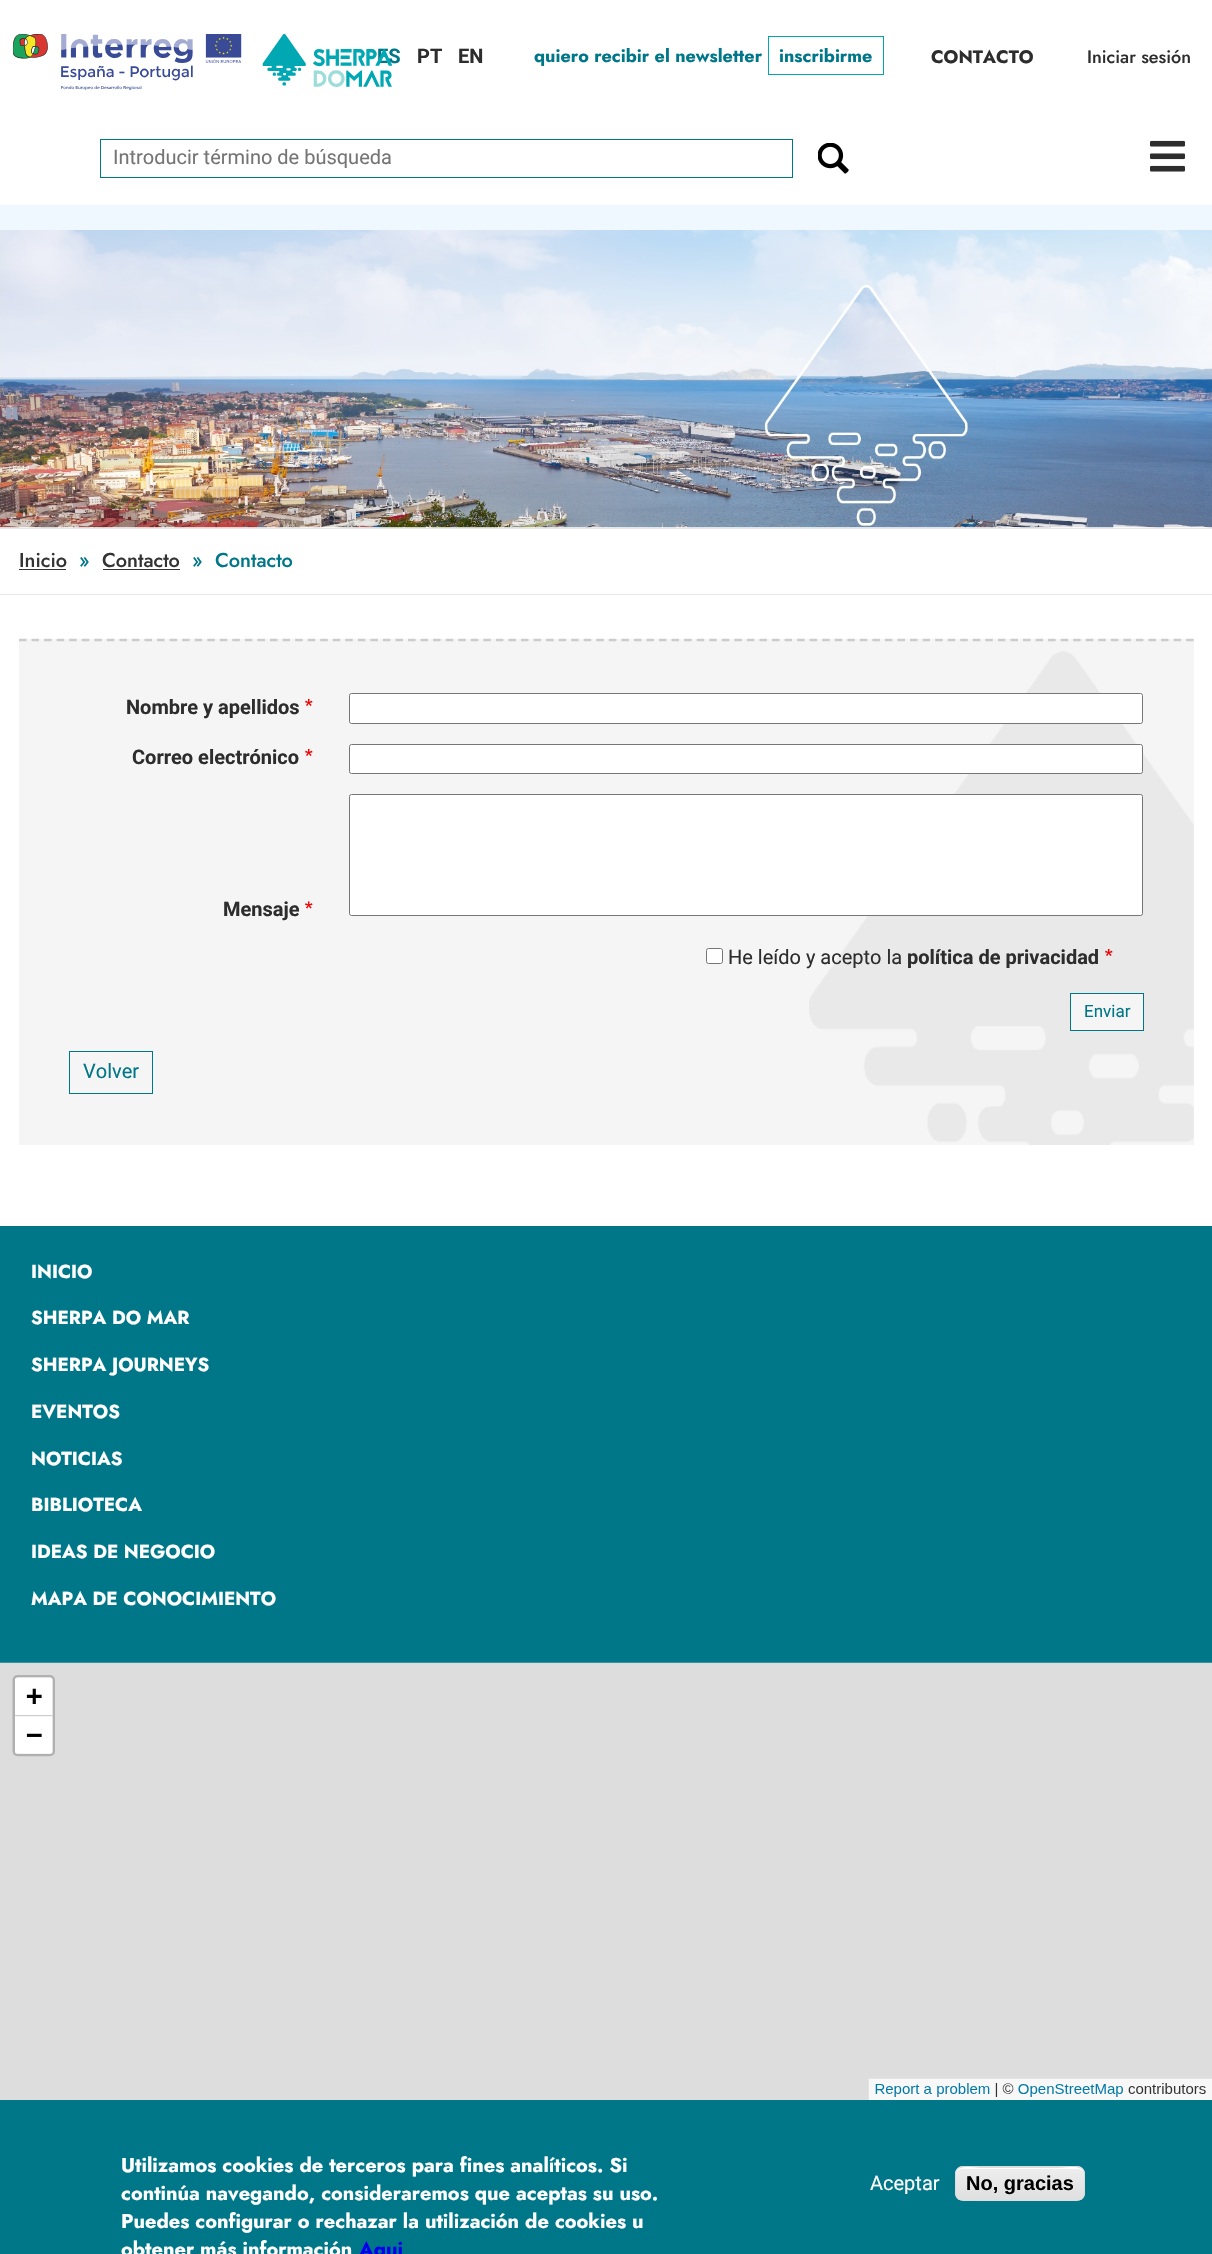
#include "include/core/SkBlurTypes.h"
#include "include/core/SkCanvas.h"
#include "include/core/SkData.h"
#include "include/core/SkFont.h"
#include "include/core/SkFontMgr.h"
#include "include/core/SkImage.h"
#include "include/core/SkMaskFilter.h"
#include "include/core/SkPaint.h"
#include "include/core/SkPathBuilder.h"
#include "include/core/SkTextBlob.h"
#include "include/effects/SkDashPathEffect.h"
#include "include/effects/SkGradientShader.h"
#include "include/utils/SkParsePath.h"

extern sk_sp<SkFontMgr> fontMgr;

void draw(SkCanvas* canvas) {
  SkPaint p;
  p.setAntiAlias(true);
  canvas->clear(SK_ColorWHITE);
  p.setStyle(SkPaint::kStroke_Style);
  p.setStrokeWidth(1);
  p.setColor(SkColorSetRGB(1, 166, 177));
  canvas->drawRect(SkRect::MakeLTRB(768.5f, 36.5f, 883.5f, 74.5f), p);
  p.setColor(SkColorSetRGB(0, 119, 136));
  canvas->drawRect(SkRect::MakeLTRB(100.5f, 139.5f, 792.5f, 177.5f), p);
  canvas->drawImageRect(SkImages::DeferredFromEncodedData(SkData::MakeFromFileName("images/2.png")), SkRect::MakeLTRB(818, 143, 849, 174), SkSamplingOptions());
  canvas->drawImageRect(SkImages::DeferredFromEncodedData(SkData::MakeFromFileName("images/3.png")), SkRect::MakeLTRB(1150, 140, 1185, 172), SkSamplingOptions());
  p.setStyle(SkPaint::kFill_Style);
  p.setColor(SkColorSetRGB(240, 248, 255));
  canvas->drawRect(SkRect::MakeLTRB(0, 205, 1212, 230), p);
  canvas->drawImageRect(SkImages::DeferredFromEncodedData(SkData::MakeFromFileName("images/4.png")), SkRect::MakeLTRB(0, 230, 1212, 528), SkSamplingOptions());
  p.setColor(SkColorSetRGB(230, 230, 230));
  canvas->drawRect(SkRect::MakeLTRB(0, 528, 1212, 529), p);
  canvas->drawRect(SkRect::MakeLTRB(0, 594, 1212, 595), p);
  p.setColor(SkColorSetRGB(51, 51, 51));
  canvas->drawRect(SkRect::MakeLTRB(19, 569, 66, 570), p);
  canvas->drawRect(SkRect::MakeLTRB(103, 569, 180, 570), p);
  p.setColor(SkColorSetRGB(245, 245, 245));
  canvas->drawRect(SkRect::MakeLTRB(19, 639, 1194, 1145), p);
  canvas->drawImageRect(SkImages::DeferredFromEncodedData(SkData::MakeFromFileName("images/5.png")), SkRect::MakeLTRB(809, 651, 1194, 1145), SkSamplingOptions());
  p.setStyle(SkPaint::kStroke_Style);
  p.setStrokeWidth(2.5f);
  p.setColor(SkColorSetRGB(204, 204, 204));
  p.setPathEffect(SkDashPathEffect::Make({{7.5f, 5.05f}}, 0));
  canvas->drawPath(SkPathBuilder().moveTo(19, 640).lineTo(1194, 640).detach(), p);
  p.setPathEffect(nullptr);
  canvas->drawImageRect(SkImages::DeferredFromEncodedData(SkData::MakeFromFileName("images/6.png")), SkRect::MakeLTRB(305, 699, 313, 706), SkSamplingOptions());
  p.setStyle(SkPaint::kFill_Style);
  p.setColor(SK_ColorWHITE);
  canvas->drawRoundRect(SkRect::MakeLTRB(349.5f, 693.5f, 1142.5f, 723.5f), 2, 2, p);
  p.setStyle(SkPaint::kStroke_Style);
  p.setStrokeWidth(1);
  p.setColor(SkColorSetRGB(118, 118, 118));
  canvas->drawRoundRect(SkRect::MakeLTRB(349.5f, 693.5f, 1142.5f, 723.5f), 2, 2, p);
  canvas->drawImageRect(SkImages::DeferredFromEncodedData(SkData::MakeFromFileName("images/6.png")), SkRect::MakeLTRB(305, 749, 313, 756), SkSamplingOptions());
  p.setStyle(SkPaint::kFill_Style);
  p.setColor(SK_ColorWHITE);
  canvas->drawRoundRect(SkRect::MakeLTRB(349.5f, 744.5f, 1142.5f, 773.5f), 2, 2, p);
  p.setStyle(SkPaint::kStroke_Style);
  p.setColor(SkColorSetRGB(118, 118, 118));
  canvas->drawRoundRect(SkRect::MakeLTRB(349.5f, 744.5f, 1142.5f, 773.5f), 2, 2, p);
  canvas->drawImageRect(SkImages::DeferredFromEncodedData(SkData::MakeFromFileName("images/7.png")), SkRect::MakeLTRB(305, 901, 313, 909), SkSamplingOptions());
  p.setStyle(SkPaint::kFill_Style);
  p.setColor(SK_ColorWHITE);
  canvas->drawRoundRect(SkRect::MakeLTRB(349.5f, 794.5f, 1142.5f, 915.5f), 2, 2, p);
  p.setStyle(SkPaint::kStroke_Style);
  p.setColor(SkColorSetRGB(118, 118, 118));
  canvas->drawRoundRect(SkRect::MakeLTRB(349.5f, 794.5f, 1142.5f, 915.5f), 2, 2, p);
  p.setStyle(SkPaint::kFill_Style);
  p.setColor(SK_ColorWHITE);
  canvas->drawRoundRect(SkRect::MakeLTRB(706.5f, 948.5f, 722.5f, 963.5f), 2, 2, p);
  p.setStyle(SkPaint::kStroke_Style);
  p.setColor(SkColorSetRGB(118, 118, 118));
  canvas->drawRoundRect(SkRect::MakeLTRB(706.5f, 948.5f, 722.5f, 963.5f), 2, 2, p);
  canvas->drawImageRect(SkImages::DeferredFromEncodedData(SkData::MakeFromFileName("images/8.png")), SkRect::MakeLTRB(1105, 949, 1113, 956), SkSamplingOptions());
  p.setStyle(SkPaint::kFill_Style);
  p.setColor(SkColorSetRGB(245, 245, 245));
  canvas->drawRect(SkRect::MakeLTRB(1070.5f, 993.5f, 1143.5f, 1030.5f), p);
  p.setStyle(SkPaint::kStroke_Style);
  p.setColor(SkColorSetRGB(0, 119, 136));
  canvas->drawRect(SkRect::MakeLTRB(1070.5f, 993.5f, 1143.5f, 1030.5f), p);
  canvas->drawRect(SkRect::MakeLTRB(69.5f, 1051.5f, 152.5f, 1093.5f), p);
  p.setStyle(SkPaint::kFill_Style);
  canvas->drawRect(SkRect::MakeLTRB(0, 1226, 1212, 2254), p);
  canvas->drawImageRect(SkImages::DeferredFromEncodedData(SkData::MakeFromFileName("images/9.png")), SkRect::MakeLTRB(0, 1662, 1212, 2100), SkSamplingOptions());
  canvas->save();
  canvas->clipPath(SkPathBuilder().moveTo(963, 2166).lineTo(1077, 2166).cubicTo(1081.5f, 2166, 1085, 2169.5f, 1085, 2174).lineTo(1085, 2193).cubicTo(1085, 2197.5f, 1081.5f, 2201, 1077, 2201).lineTo(963, 2201).cubicTo(958.5f, 2201, 955, 2197.5f, 955, 2193).lineTo(955, 2174).cubicTo(955, 2169.5f, 958.5f, 2166, 963, 2166).close().detach(), true);
  {
    const SkColor colors[] = {SkColorSetRGB(237, 237, 237), SkColorSetRGB(223, 223, 223)};
    const float stops[] = {0.05f, 1};
    const SkPoint ends[] = {{1020, 2135}, {1020, 2168}};
    p.setShader(SkGradientShader::MakeLinear(ends, colors, stops, 2, SkTileMode::kClamp));
    p.setAlpha(255);
  }
  canvas->drawRect(SkRect::MakeLTRB(955, 2166, 1085, 2168), p);
  {
    const SkColor colors[] = {SkColorSetRGB(237, 237, 237), SkColorSetRGB(223, 223, 223)};
    const float stops[] = {0.05f, 1};
    const SkPoint ends[] = {{1020, 2168}, {1020, 2200}};
    p.setShader(SkGradientShader::MakeLinear(ends, colors, stops, 2, SkTileMode::kClamp));
    p.setAlpha(255);
  }
  canvas->drawRect(SkRect::MakeLTRB(955, 2168, 1085, 2200), p);
  canvas->restore();
  p.setShader(nullptr);
  p.setColor(SK_ColorWHITE);
  canvas->drawPath(SkPathBuilder().moveTo(962, 2169).lineTo(1078, 2169).cubicTo(1081, 2169, 1084, 2172, 1084, 2175).cubicTo(1084, 2163, 1064, 2168, 1059, 2168).lineTo(981, 2168).cubicTo(976, 2168, 956, 2163, 956, 2175).cubicTo(956, 2172, 959, 2169, 962, 2169).close().detach(), p);
  p.setStyle(SkPaint::kStroke_Style);
  p.setColor(SkColorSetRGB(220, 220, 220));
  canvas->drawRoundRect(SkRect::MakeLTRB(955.5f, 2166.5f, 1084.5f, 2200.5f), 7.5f, 7.5f, p);
  SkFont font1(fontMgr->matchFamilyStyle("Roboto", SkFontStyle::Bold()), 20);
  font1.setSubpixel(true);
  p.setStyle(SkPaint::kFill_Style);
  p.setColor(SkColorSetRGB(0, 119, 136));
  canvas->drawString("ES", 377, 63, font1, p);
  p.setColor(SkColorSetRGB(45, 45, 45));
  canvas->drawString("PT", 417, 63, font1, p);
  canvas->drawString("EN", 458, 63, font1, p);
  SkFont font2(fontMgr->matchFamilyStyle("Jost", SkFontStyle::Bold()), 18);
  font2.setSubpixel(true);
  p.setColor(SkColorSetRGB(0, 119, 136));
  canvas->drawString("quiero recibir el newsletter", 534, 62, font2, p);
  canvas->drawString("inscribirme", 779, 62, font2, p);
  p.setColor(SkColorSetRGB(45, 45, 45));
  canvas->drawString("CONTACTO", 931, 63, font2, p);
  SkFont font3(fontMgr->matchFamilyStyle("Jost", SkFontStyle(500, SkFontStyle::kNormal_Width, SkFontStyle::kUpright_Slant)), 18);
  font3.setSubpixel(true);
  canvas->drawString("Iniciar sesión", 1087, 63, font3, p);
  canvas->drawImageRect(SkImages::DeferredFromEncodedData(SkData::MakeFromFileName("images/1.png")), SkRect::MakeLTRB(13, 34, 393, 90), SkSamplingOptions());
  SkFont font4(fontMgr->matchFamilyStyle("Roboto", SkFontStyle::Normal()), 20);
  font4.setSubpixel(true);
  p.setColor(SkColorSetRGB(117, 117, 117));
  canvas->drawString("Introducir término de búsqueda", 113, 164, font4, p);
  SkFont font5(fontMgr->matchFamilyStyle("Jost", SkFontStyle(500, SkFontStyle::kNormal_Width, SkFontStyle::kUpright_Slant)), 20);
  font5.setSubpixel(true);
  p.setColor(SkColorSetRGB(51, 51, 51));
  canvas->drawString("Inicio", 19, 567, font5, p);
  p.setColor(SkColorSetRGB(0, 119, 136));
  canvas->drawString("»", 79, 567, font5, p);
  p.setColor(SkColorSetRGB(51, 51, 51));
  canvas->drawString("Contacto", 102, 567, font5, p);
  p.setColor(SkColorSetRGB(0, 119, 136));
  canvas->drawString("»", 192, 567, font5, p);
  canvas->drawString("Contacto", 215, 567, font5, p);
  p.setColor(SkColorSetRGB(45, 45, 45));
  canvas->drawString("Nombre y apellidos", 126, 714, font1, p);
  canvas->drawString("Correo electrónico", 132, 764, font1, p);
  canvas->drawString("Mensaje", 223, 916, font1, p);
  canvas->drawString("He leído y acepto la", 728, 964, font4, p);
  canvas->drawString("política de privacidad", 907, 964, font1, p);
  SkFont font6(fontMgr->matchFamilyStyle("Roboto", SkFontStyle::Normal()), 17);
  font6.setSubpixel(true);
  p.setColor(SkColorSetRGB(0, 119, 136));
  canvas->drawString("Enviar", 1084, 1017, font6, p);
  canvas->drawString("Volver", 83, 1078, font4, p);
  SkFont font7(fontMgr->matchFamilyStyle("Jost", SkFontStyle::Bold()), 18.75f);
  font7.setSubpixel(true);
  p.setColor(SK_ColorWHITE);
  canvas->drawString("INICIO", 31, 1278, font7, p);
  canvas->drawString("SHERPA DO MAR", 31, 1324, font7, p);
  canvas->drawString("SHERPA JOURNEYS", 31, 1371, font7, p);
  canvas->drawString("EVENTOS", 31, 1418, font7, p);
  canvas->drawString("NOTICIAS", 31, 1465, font7, p);
  canvas->drawString("BIBLIOTECA", 31, 1511, font7, p);
  canvas->drawString("IDEAS DE NEGOCIO", 31, 1558, font7, p);
  canvas->drawString("MAPA DE CONOCIMIENTO", 31, 1605, font7, p);
  SkFont font8(fontMgr->matchFamilyStyle("Jost", SkFontStyle::Bold()), 20);
  font8.setSubpixel(true);
  canvas->drawString("Utilizamos cookies de terceros para fines analíticos. Si", 121, 2172, font8, p);
  canvas->drawString("continúa navegando, consideraremos que aceptas su uso.", 121, 2200, font8, p);
  canvas->drawString("Puedes configurar o rechazar la utilización de cookies u", 121, 2228, font8, p);
  canvas->drawString("obtener más información", 121, 2256, font8, p);
  p.setColor(SkColorSetRGB(0, 0, 238));
  canvas->drawString("Aqui", 359, 2256, font8, p);
  p.setColor(SK_ColorWHITE);
  canvas->drawString("Aceptar", 870, 2190, font4, p);
  SkFont font9(fontMgr->matchFamilyStyle("Liberation Sans", SkFontStyle::Bold()), 20);
  font9.setSubpixel(true);
  p.setColor(SK_ColorBLACK);
  canvas->drawString("No, gracias", 966, 2190, font9, p);
}
